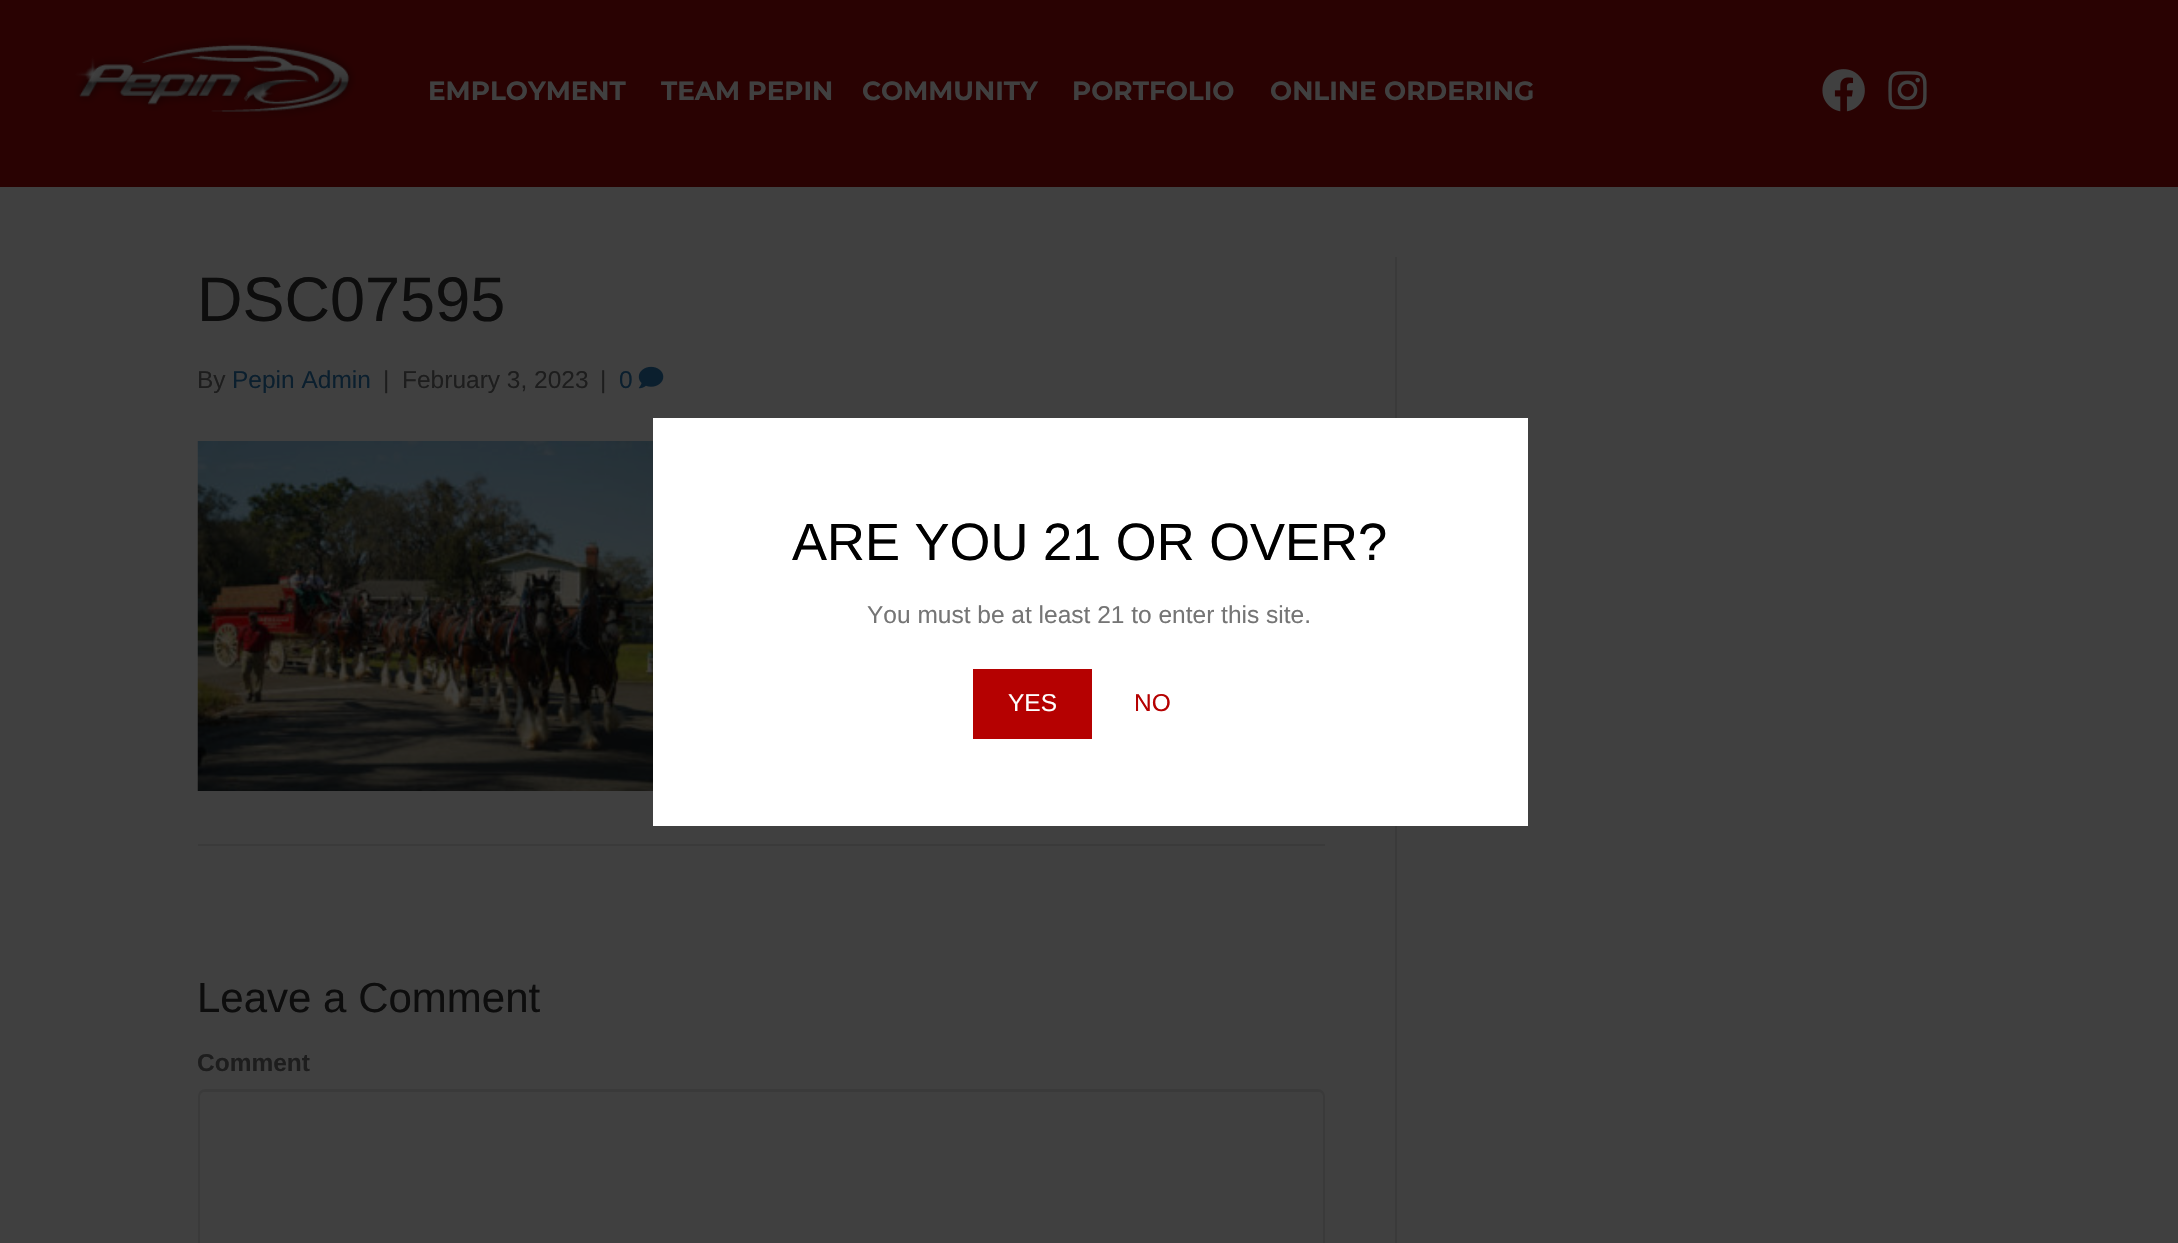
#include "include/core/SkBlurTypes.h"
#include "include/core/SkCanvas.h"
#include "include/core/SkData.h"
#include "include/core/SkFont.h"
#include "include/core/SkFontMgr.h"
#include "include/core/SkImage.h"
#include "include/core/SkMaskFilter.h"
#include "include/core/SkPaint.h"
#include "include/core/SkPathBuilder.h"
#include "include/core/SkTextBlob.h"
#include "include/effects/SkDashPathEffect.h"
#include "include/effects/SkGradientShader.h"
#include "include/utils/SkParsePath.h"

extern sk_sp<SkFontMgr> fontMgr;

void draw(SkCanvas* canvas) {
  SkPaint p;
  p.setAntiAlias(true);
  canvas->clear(SkColorSetRGB(64, 64, 64));
  p.setColor(SkColorSetRGB(41, 2, 2));
  canvas->drawRect(SkRect::MakeLTRB(0, 0, 2178, 187), p);
  canvas->drawImageRect(SkImages::DeferredFromEncodedData(SkData::MakeFromFileName("images/1.png")), SkRect::MakeLTRB(74, 37, 356, 118), SkSamplingOptions());
  canvas->drawImageRect(SkImages::DeferredFromEncodedData(SkData::MakeFromFileName("images/2.png")), SkRect::MakeLTRB(1822, 69, 1865, 112), SkSamplingOptions());
  canvas->drawImageRect(SkImages::DeferredFromEncodedData(SkData::MakeFromFileName("images/3.png")), SkRect::MakeLTRB(1888, 71, 1927, 110), SkSamplingOptions());
  p.setColor(SkColorSetRGB(58, 58, 58));
  canvas->drawRect(SkRect::MakeLTRB(1395, 257, 1397, 1243), p);
  canvas->drawImageRect(SkImages::DeferredFromEncodedData(SkData::MakeFromFileName("images/4.png")), SkRect::MakeLTRB(638, 366, 664, 389), SkSamplingOptions());
  canvas->drawImageRect(SkImages::DeferredFromEncodedData(SkData::MakeFromFileName("images/5.png")), SkRect::MakeLTRB(197, 441, 653, 791), SkSamplingOptions());
  canvas->drawRect(SkRect::MakeLTRB(198, 844, 1325, 846), p);
  canvas->drawPath(SkPathBuilder().moveTo(205, 1092).lineTo(1318, 1092).cubicTo(1321, 1092, 1323, 1094, 1323, 1097).lineTo(1323, 1095).cubicTo(1323, 1092, 1321, 1090, 1318, 1090).lineTo(205, 1090).cubicTo(202, 1090, 200, 1092, 200, 1095).lineTo(200, 1097).cubicTo(200, 1094, 202, 1092, 205, 1092).close().detach(), p);
  p.setStyle(SkPaint::kStroke_Style);
  p.setStrokeWidth(2);
  canvas->drawRoundRect(SkRect::MakeLTRB(199, 1090, 1324, 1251), 6, 6, p);
  p.setStyle(SkPaint::kFill_Style);
  p.setColor(SK_ColorWHITE);
  canvas->drawRect(SkRect::MakeLTRB(653, 418, 1528, 826), p);
  p.setColor(SkColorSetRGB(181, 1, 1));
  canvas->drawRect(SkRect::MakeLTRB(973, 669, 1092, 739), p);
  SkFont font1(fontMgr->matchFamilyStyle("Montserrat", SkFontStyle::Bold()), 26.25f);
  font1.setSubpixel(true);
  p.setColor(SkColorSetRGB(64, 64, 64));
  canvas->drawString("EMPLOYMENT", 428, 100, font1, p);
  canvas->drawString("TEAM PEPIN", 661, 100, font1, p);
  canvas->drawString("COMMUNITY", 862, 100, font1, p);
  canvas->drawString("PORTFOLIO", 1072, 100, font1, p);
  canvas->drawString("ONLINE ORDERING", 1270, 100, font1, p);
  SkFont font2(fontMgr->matchFamilyStyle("Liberation Sans", SkFontStyle::Normal()), 63);
  font2.setSubpixel(true);
  p.setColor(SkColorSetRGB(13, 13, 13));
  canvas->drawString("DSC07595", 197, 321, font2, p);
  SkFont font3(fontMgr->matchFamilyStyle("Liberation Sans", SkFontStyle::Normal()), 24.5f);
  font3.setSubpixel(true);
  p.setColor(SkColorSetRGB(29, 29, 29));
  canvas->drawString("By", 197, 388, font3, p);
  p.setColor(SkColorSetRGB(11, 31, 46));
  canvas->drawString("Pepin Admin", 232, 388, font3, p);
  p.setColor(SkColorSetRGB(29, 29, 29));
  canvas->drawString("|", 383, 388, font3, p);
  canvas->drawString("February 3, 2023", 402, 388, font3, p);
  canvas->drawString("|", 600, 388, font3, p);
  p.setColor(SkColorSetRGB(11, 31, 46));
  canvas->drawString("0", 619, 388, font3, p);
  SkFont font4(fontMgr->matchFamilyStyle("Liberation Sans", SkFontStyle::Normal()), 42);
  font4.setSubpixel(true);
  p.setColor(SkColorSetRGB(13, 13, 13));
  canvas->drawString("Leave a Comment", 197, 1012, font4, p);
  SkFont font5(fontMgr->matchFamilyStyle("Liberation Sans", SkFontStyle::Bold()), 24.5f);
  font5.setSubpixel(true);
  p.setColor(SkColorSetRGB(29, 29, 29));
  canvas->drawString("Comment", 197, 1071, font5, p);
  SkFont font6(fontMgr->matchFamilyStyle("Liberation Sans", SkFontStyle::Normal()), 52.5f);
  font6.setSubpixel(true);
  p.setColor(SK_ColorBLACK);
  canvas->drawString("ARE YOU 21 OR OVER?", 792, 560, font6, p);
  p.setColor(SkColorSetRGB(117, 117, 117));
  canvas->drawString("You must be at least 21 to enter this site.", 867, 623, font3, p);
  p.setColor(SK_ColorWHITE);
  canvas->drawString("YES", 1008, 711, font3, p);
  p.setColor(SkColorSetRGB(181, 1, 1));
  canvas->drawString("NO", 1134, 711, font3, p);
}
